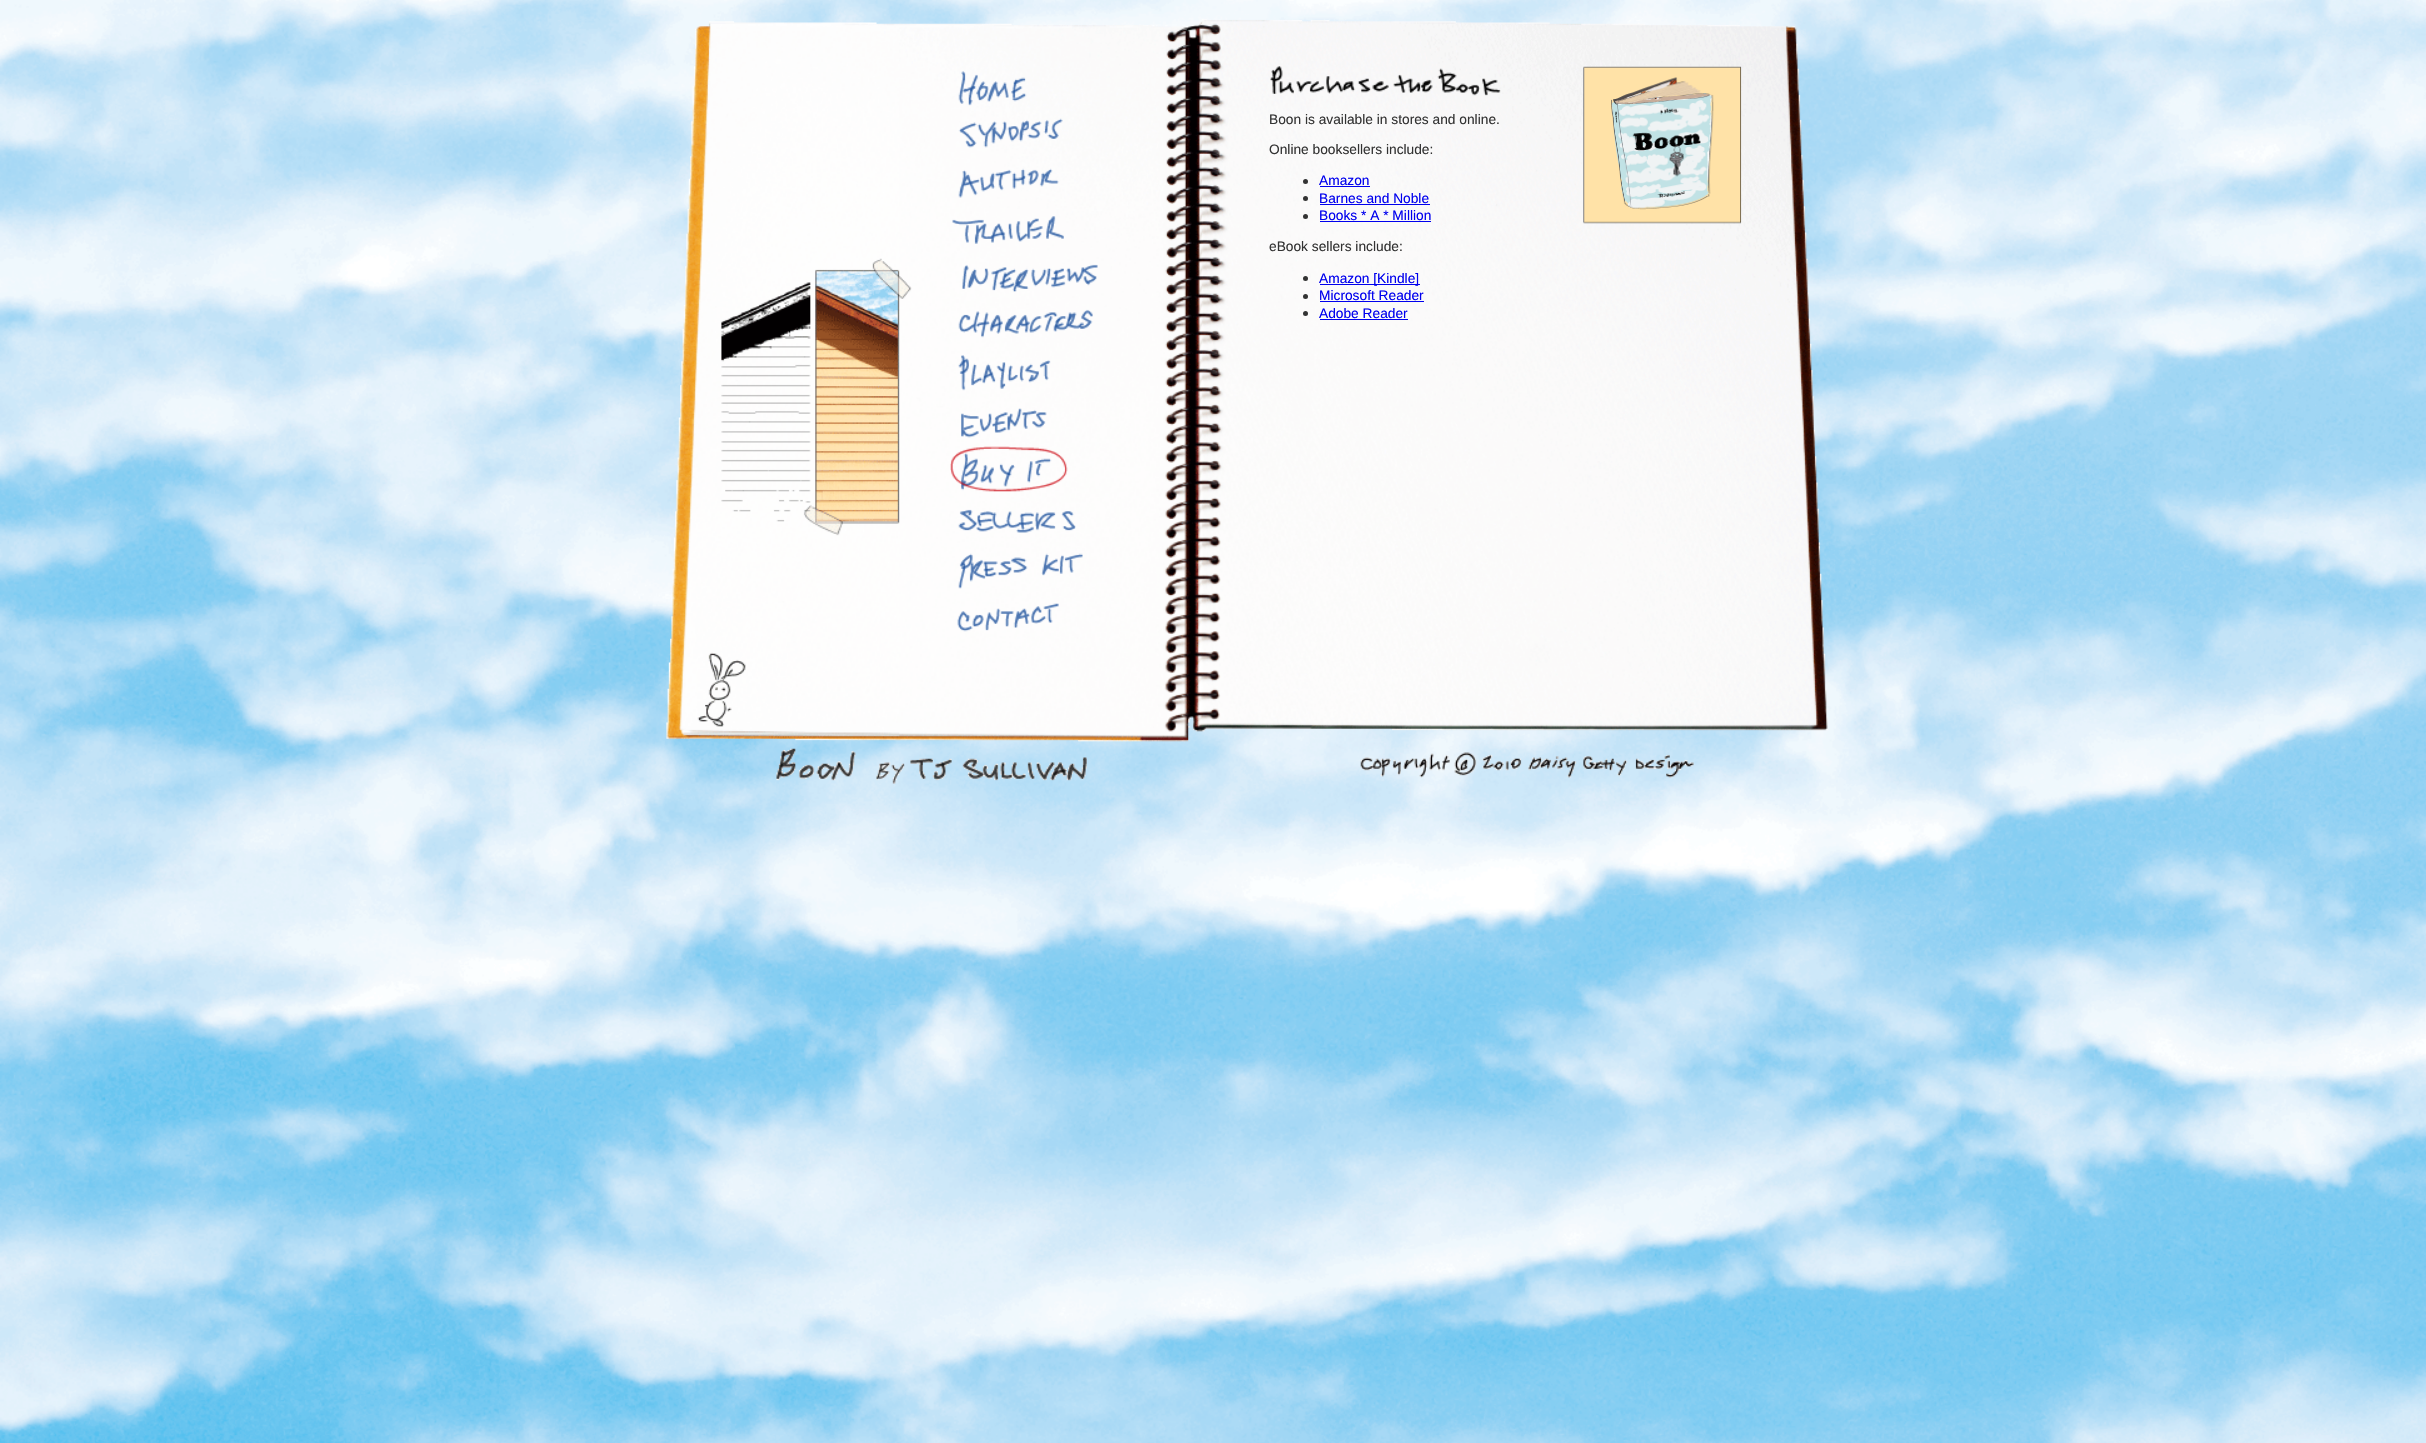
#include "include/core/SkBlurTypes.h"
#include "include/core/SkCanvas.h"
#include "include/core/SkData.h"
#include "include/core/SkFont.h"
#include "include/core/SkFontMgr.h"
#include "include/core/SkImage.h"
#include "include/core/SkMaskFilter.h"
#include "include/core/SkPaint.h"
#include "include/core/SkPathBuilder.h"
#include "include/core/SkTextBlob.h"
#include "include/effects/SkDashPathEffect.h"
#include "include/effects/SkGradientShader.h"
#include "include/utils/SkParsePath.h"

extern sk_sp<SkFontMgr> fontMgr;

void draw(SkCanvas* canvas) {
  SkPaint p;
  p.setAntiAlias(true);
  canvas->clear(SK_ColorWHITE);
  canvas->drawImageRect(SkImages::DeferredFromEncodedData(SkData::MakeFromFileName("images/1.png")), SkRect::MakeLTRB(0, 0, 2426, 1443), SkSamplingOptions());
  canvas->drawImageRect(SkImages::DeferredFromEncodedData(SkData::MakeFromFileName("images/2.png")), SkRect::MakeLTRB(666, 19, 1828, 784), SkSamplingOptions());
  canvas->drawImageRect(SkImages::DeferredFromEncodedData(SkData::MakeFromFileName("images/3.png")), SkRect::MakeLTRB(958, 71, 1027, 106), SkSamplingOptions());
  canvas->drawImageRect(SkImages::DeferredFromEncodedData(SkData::MakeFromFileName("images/4.png")), SkRect::MakeLTRB(958, 118, 1063, 148), SkSamplingOptions());
  canvas->drawImageRect(SkImages::DeferredFromEncodedData(SkData::MakeFromFileName("images/5.png")), SkRect::MakeLTRB(958, 168, 1059, 198), SkSamplingOptions());
  canvas->drawImageRect(SkImages::DeferredFromEncodedData(SkData::MakeFromFileName("images/6.png")), SkRect::MakeLTRB(952, 216, 1064, 244), SkSamplingOptions());
  canvas->drawImageRect(SkImages::DeferredFromEncodedData(SkData::MakeFromFileName("images/7.png")), SkRect::MakeLTRB(962, 264, 1098, 292), SkSamplingOptions());
  canvas->drawImageRect(SkImages::DeferredFromEncodedData(SkData::MakeFromFileName("images/8.png")), SkRect::MakeLTRB(958, 309, 1093, 338), SkSamplingOptions());
  canvas->drawImageRect(SkImages::DeferredFromEncodedData(SkData::MakeFromFileName("images/9.png")), SkRect::MakeLTRB(958, 355, 1051, 391), SkSamplingOptions());
  canvas->drawImageRect(SkImages::DeferredFromEncodedData(SkData::MakeFromFileName("images/10.png")), SkRect::MakeLTRB(961, 408, 1047, 438), SkSamplingOptions());
  canvas->drawImageRect(SkImages::DeferredFromEncodedData(SkData::MakeFromFileName("images/11.png")), SkRect::MakeLTRB(950, 446, 1068, 492), SkSamplingOptions());
  canvas->drawImageRect(SkImages::DeferredFromEncodedData(SkData::MakeFromFileName("images/12.png")), SkRect::MakeLTRB(958, 509, 1076, 533), SkSamplingOptions());
  canvas->drawImageRect(SkImages::DeferredFromEncodedData(SkData::MakeFromFileName("images/13.png")), SkRect::MakeLTRB(958, 553, 1083, 589), SkSamplingOptions());
  canvas->drawImageRect(SkImages::DeferredFromEncodedData(SkData::MakeFromFileName("images/14.png")), SkRect::MakeLTRB(957, 603, 1059, 632), SkSamplingOptions());
  canvas->drawImageRect(SkImages::DeferredFromEncodedData(SkData::MakeFromFileName("images/15.png")), SkRect::MakeLTRB(1270, 66, 1501, 96), SkSamplingOptions());
  canvas->drawImageRect(SkImages::DeferredFromEncodedData(SkData::MakeFromFileName("images/16.png")), SkRect::MakeLTRB(1583, 66, 1742, 224), SkSamplingOptions());
  p.setColor(SkColorSetRGB(51, 51, 51));
  canvas->drawCircle(1305.5f, 181.5f, 2.5f, p);
  p.setColor(SkColorSetRGB(0, 0, 238));
  canvas->drawRect(SkRect::MakeLTRB(1320, 186, 1370, 187), p);
  p.setColor(SkColorSetRGB(51, 51, 51));
  canvas->drawCircle(1305.5f, 198.5f, 2.5f, p);
  p.setColor(SkColorSetRGB(0, 0, 238));
  canvas->drawRect(SkRect::MakeLTRB(1320, 204, 1430, 205), p);
  p.setColor(SkColorSetRGB(51, 51, 51));
  canvas->drawCircle(1305.5f, 216.5f, 2.5f, p);
  p.setColor(SkColorSetRGB(0, 0, 238));
  canvas->drawRect(SkRect::MakeLTRB(1320, 221, 1431, 222), p);
  p.setColor(SkColorSetRGB(51, 51, 51));
  canvas->drawCircle(1305.5f, 278.5f, 2.5f, p);
  p.setColor(SkColorSetRGB(0, 0, 238));
  canvas->drawRect(SkRect::MakeLTRB(1320, 284, 1420, 285), p);
  p.setColor(SkColorSetRGB(51, 51, 51));
  canvas->drawCircle(1305.5f, 296.5f, 2.5f, p);
  p.setColor(SkColorSetRGB(0, 0, 238));
  canvas->drawRect(SkRect::MakeLTRB(1320, 301, 1424, 302), p);
  p.setColor(SkColorSetRGB(51, 51, 51));
  canvas->drawCircle(1305.5f, 313.5f, 2.5f, p);
  p.setColor(SkColorSetRGB(0, 0, 238));
  canvas->drawRect(SkRect::MakeLTRB(1320, 319, 1408, 320), p);
  SkFont font1(fontMgr->matchFamilyStyle("Liberation Sans", SkFontStyle::Normal()), 13.75f);
  font1.setSubpixel(true);
  p.setColor(SkColorSetRGB(51, 51, 51));
  canvas->drawString("Boon is available in stores and online.", 1269, 124, font1, p);
  canvas->drawString("Online booksellers include:", 1269, 154, font1, p);
  p.setColor(SkColorSetRGB(0, 0, 238));
  canvas->drawString("Amazon", 1319, 185, font1, p);
  canvas->drawString("Barnes and Noble", 1319, 203, font1, p);
  canvas->drawString("Books * A * Million", 1319, 220, font1, p);
  p.setColor(SkColorSetRGB(51, 51, 51));
  canvas->drawString("eBook sellers include:", 1269, 251, font1, p);
  p.setColor(SkColorSetRGB(0, 0, 238));
  canvas->drawString("Amazon [Kindle]", 1319, 283, font1, p);
  canvas->drawString("Microsoft Reader", 1319, 300, font1, p);
  canvas->drawString("Adobe Reader", 1319, 318, font1, p);
}
